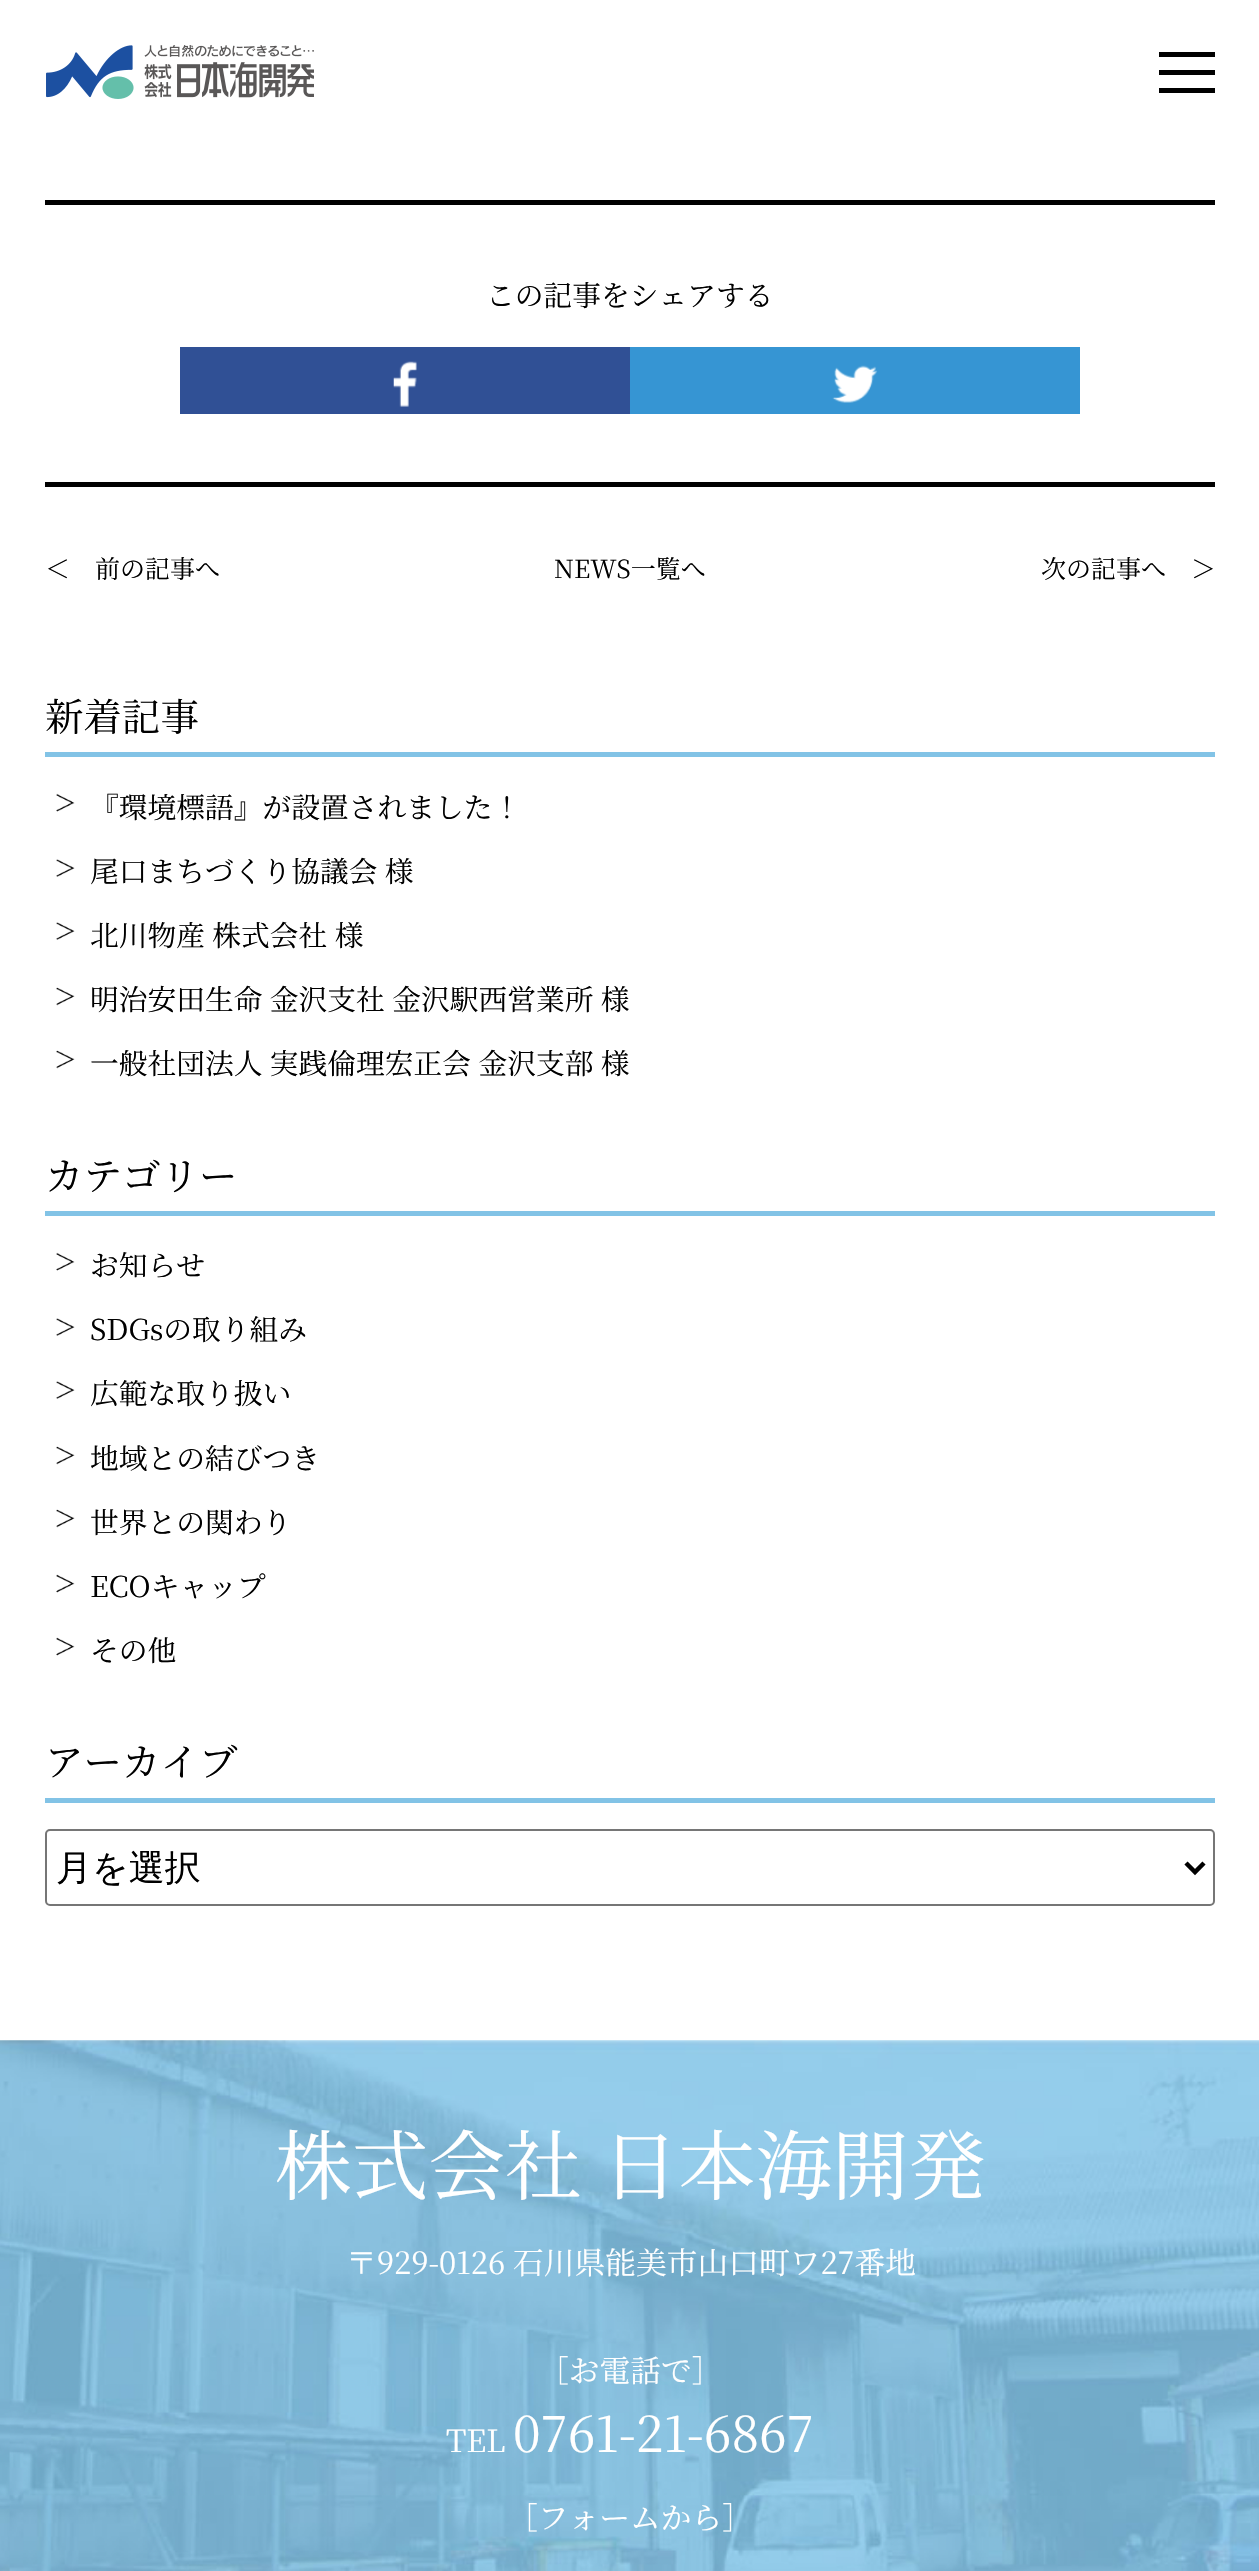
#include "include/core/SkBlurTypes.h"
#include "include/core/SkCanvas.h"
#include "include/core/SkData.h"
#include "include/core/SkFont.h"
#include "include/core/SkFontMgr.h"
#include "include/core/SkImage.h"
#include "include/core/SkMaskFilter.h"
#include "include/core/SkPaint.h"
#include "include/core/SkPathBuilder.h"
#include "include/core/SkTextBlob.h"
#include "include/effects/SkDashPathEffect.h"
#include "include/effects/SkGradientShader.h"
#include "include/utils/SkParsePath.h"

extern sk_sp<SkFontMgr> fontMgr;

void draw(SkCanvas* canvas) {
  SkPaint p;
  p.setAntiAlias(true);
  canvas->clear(SK_ColorWHITE);
  canvas->drawImageRect(SkImages::DeferredFromEncodedData(SkData::MakeFromFileName("images/1.png")), SkRect::MakeLTRB(46, 45, 314, 99), SkSamplingOptions());
  p.setColor(SK_ColorBLACK);
  canvas->drawRect(SkRect::MakeLTRB(1159, 52, 1215, 57), p);
  canvas->drawRect(SkRect::MakeLTRB(1159, 70, 1215, 75), p);
  canvas->drawRect(SkRect::MakeLTRB(1159, 88, 1215, 93), p);
  canvas->drawRect(SkRect::MakeLTRB(45, 200, 1215, 205), p);
  p.setColor(SkColorSetRGB(48, 80, 149));
  canvas->drawRect(SkRect::MakeLTRB(180, 347, 630, 414), p);
  canvas->drawImageRect(SkImages::DeferredFromEncodedData(SkData::MakeFromFileName("images/2.png")), SkRect::MakeLTRB(393, 361, 417, 407), SkSamplingOptions());
  p.setColor(SkColorSetRGB(54, 149, 211));
  canvas->drawRect(SkRect::MakeLTRB(630, 347, 1080, 414), p);
  canvas->drawImageRect(SkImages::DeferredFromEncodedData(SkData::MakeFromFileName("images/3.png")), SkRect::MakeLTRB(832, 365, 878, 403), SkSamplingOptions());
  p.setColor(SK_ColorBLACK);
  canvas->drawRect(SkRect::MakeLTRB(45, 482, 1215, 487), p);
  p.setColor(SkColorSetRGB(130, 195, 230));
  canvas->drawRect(SkRect::MakeLTRB(45, 752, 1215, 757), p);
  canvas->drawImageRect(SkImages::DeferredFromEncodedData(SkData::MakeFromFileName("images/4.png")), SkRect::MakeLTRB(56, 793, 75, 812), SkSamplingOptions());
  canvas->drawImageRect(SkImages::DeferredFromEncodedData(SkData::MakeFromFileName("images/5.png")), SkRect::MakeLTRB(56, 859, 75, 877), SkSamplingOptions());
  canvas->drawImageRect(SkImages::DeferredFromEncodedData(SkData::MakeFromFileName("images/5.png")), SkRect::MakeLTRB(56, 922, 75, 940), SkSamplingOptions());
  canvas->drawImageRect(SkImages::DeferredFromEncodedData(SkData::MakeFromFileName("images/6.png")), SkRect::MakeLTRB(56, 987, 75, 1006), SkSamplingOptions());
  canvas->drawImageRect(SkImages::DeferredFromEncodedData(SkData::MakeFromFileName("images/6.png")), SkRect::MakeLTRB(56, 1050, 75, 1069), SkSamplingOptions());
  canvas->drawRect(SkRect::MakeLTRB(45, 1211, 1215, 1216), p);
  canvas->drawImageRect(SkImages::DeferredFromEncodedData(SkData::MakeFromFileName("images/4.png")), SkRect::MakeLTRB(56, 1252, 75, 1271), SkSamplingOptions());
  canvas->drawImageRect(SkImages::DeferredFromEncodedData(SkData::MakeFromFileName("images/5.png")), SkRect::MakeLTRB(56, 1318, 75, 1336), SkSamplingOptions());
  canvas->drawImageRect(SkImages::DeferredFromEncodedData(SkData::MakeFromFileName("images/5.png")), SkRect::MakeLTRB(56, 1381, 75, 1399), SkSamplingOptions());
  canvas->drawImageRect(SkImages::DeferredFromEncodedData(SkData::MakeFromFileName("images/6.png")), SkRect::MakeLTRB(56, 1446, 75, 1465), SkSamplingOptions());
  canvas->drawImageRect(SkImages::DeferredFromEncodedData(SkData::MakeFromFileName("images/6.png")), SkRect::MakeLTRB(56, 1509, 75, 1528), SkSamplingOptions());
  canvas->drawImageRect(SkImages::DeferredFromEncodedData(SkData::MakeFromFileName("images/7.png")), SkRect::MakeLTRB(56, 1574, 75, 1593), SkSamplingOptions());
  canvas->drawImageRect(SkImages::DeferredFromEncodedData(SkData::MakeFromFileName("images/7.png")), SkRect::MakeLTRB(56, 1637, 75, 1656), SkSamplingOptions());
  canvas->drawRect(SkRect::MakeLTRB(45, 1798, 1215, 1803), p);
  p.setStyle(SkPaint::kStroke_Style);
  p.setStrokeWidth(2);
  p.setColor(SkColorSetRGB(118, 118, 118));
  canvas->drawRoundRect(SkRect::MakeLTRB(46, 1830, 1214, 1905), 4, 4, p);
  p.setStrokeWidth(4.5f);
  p.setColor(SK_ColorBLACK);
  canvas->drawPath(SkPathBuilder().moveTo(1186, 1863).lineTo(1195, 1872).lineTo(1204, 1863).detach(), p);
  canvas->drawImageRect(SkImages::DeferredFromEncodedData(SkData::MakeFromFileName("images/8.png")), SkRect::MakeLTRB(0, 2040, 1259, 2571), SkSamplingOptions());
  SkFont font1(fontMgr->matchFamilyStyle("Noto Serif JP", SkFontStyle(200, SkFontStyle::kNormal_Width, SkFontStyle::kUpright_Slant)), 28.75f);
  font1.setSubpixel(true);
  p.setStyle(SkPaint::kFill_Style);
  canvas->drawString("この記事をシェアする", 486, 306, font1, p);
  SkFont font2(fontMgr->matchFamilyStyle("Noto Serif JP", SkFontStyle(200, SkFontStyle::kNormal_Width, SkFontStyle::kUpright_Slant)), 25);
  font2.setSubpixel(true);
  canvas->drawString("＜　前の記事へ", 45, 578, font2, p);
  canvas->drawString("NEWS一覧へ", 554, 578, font2, p);
  canvas->drawString("次の記事へ　＞", 1041, 578, font2, p);
  SkFont font3(fontMgr->matchFamilyStyle("Noto Serif JP", SkFontStyle(200, SkFontStyle::kNormal_Width, SkFontStyle::kUpright_Slant)), 38.5f);
  font3.setSubpixel(true);
  canvas->drawString("新着記事", 45, 731, font3, p);
  canvas->drawString("『環境標語』が設置されました！", 90, 818, font1, p);
  canvas->drawString("尾口まちづくり協議会 様", 90, 882, font1, p);
  canvas->drawString("北川物産 株式会社 様", 90, 946, font1, p);
  canvas->drawString("明治安田生命 金沢支社 金沢駅西営業所 様", 90, 1010, font1, p);
  canvas->drawString("一般社団法人 実践倫理宏正会 金沢支部 様", 90, 1074, font1, p);
  canvas->drawString("カテゴリー", 45, 1190, font3, p);
  canvas->drawString("お知らせ", 90, 1276, font1, p);
  canvas->drawString("SDGsの取り組み", 90, 1340, font1, p);
  canvas->drawString("広範な取り扱い", 90, 1404, font1, p);
  canvas->drawString("地域との結びつき", 90, 1469, font1, p);
  canvas->drawString("世界との関わり", 90, 1533, font1, p);
  canvas->drawString("ECOキャップ", 90, 1597, font1, p);
  canvas->drawString("その他", 90, 1661, font1, p);
  canvas->drawString("アーカイブ", 45, 1776, font3, p);
  SkFont font4(fontMgr->matchFamilyStyle("WenQuanYi Zen Hei", SkFontStyle(500, SkFontStyle::kNormal_Width, SkFontStyle::kUpright_Slant)), 36);
  font4.setSubpixel(true);
  canvas->drawString("月を選択", 56, 1880, font4, p);
  SkFont font5(fontMgr->matchFamilyStyle("Noto Serif JP", SkFontStyle(200, SkFontStyle::kNormal_Width, SkFontStyle::kUpright_Slant)), 76.75f);
  font5.setSubpixel(true);
  p.setColor(SK_ColorWHITE);
  canvas->drawString("株式会社 日本海開発", 275, 2194, font5, p);
  SkFont font6(fontMgr->matchFamilyStyle("Noto Serif JP", SkFontStyle(200, SkFontStyle::kNormal_Width, SkFontStyle::kUpright_Slant)), 30.75f);
  font6.setSubpixel(true);
  canvas->drawString("〒929-0126 石川県能美市山口町ワ27番地", 346, 2274, font6, p);
  canvas->drawString("［お電話で］", 538, 2382, font6, p);
  canvas->drawString("TEL", 446, 2452, font6, p);
  SkFont font7(fontMgr->matchFamilyStyle("Noto Serif JP", SkFontStyle(200, SkFontStyle::kNormal_Width, SkFontStyle::kUpright_Slant)), 49.5f);
  font7.setSubpixel(true);
  canvas->drawString("0761-21-6867", 513, 2452, font7, p);
  canvas->drawString("［フォームから］", 507, 2529, font6, p);
}
